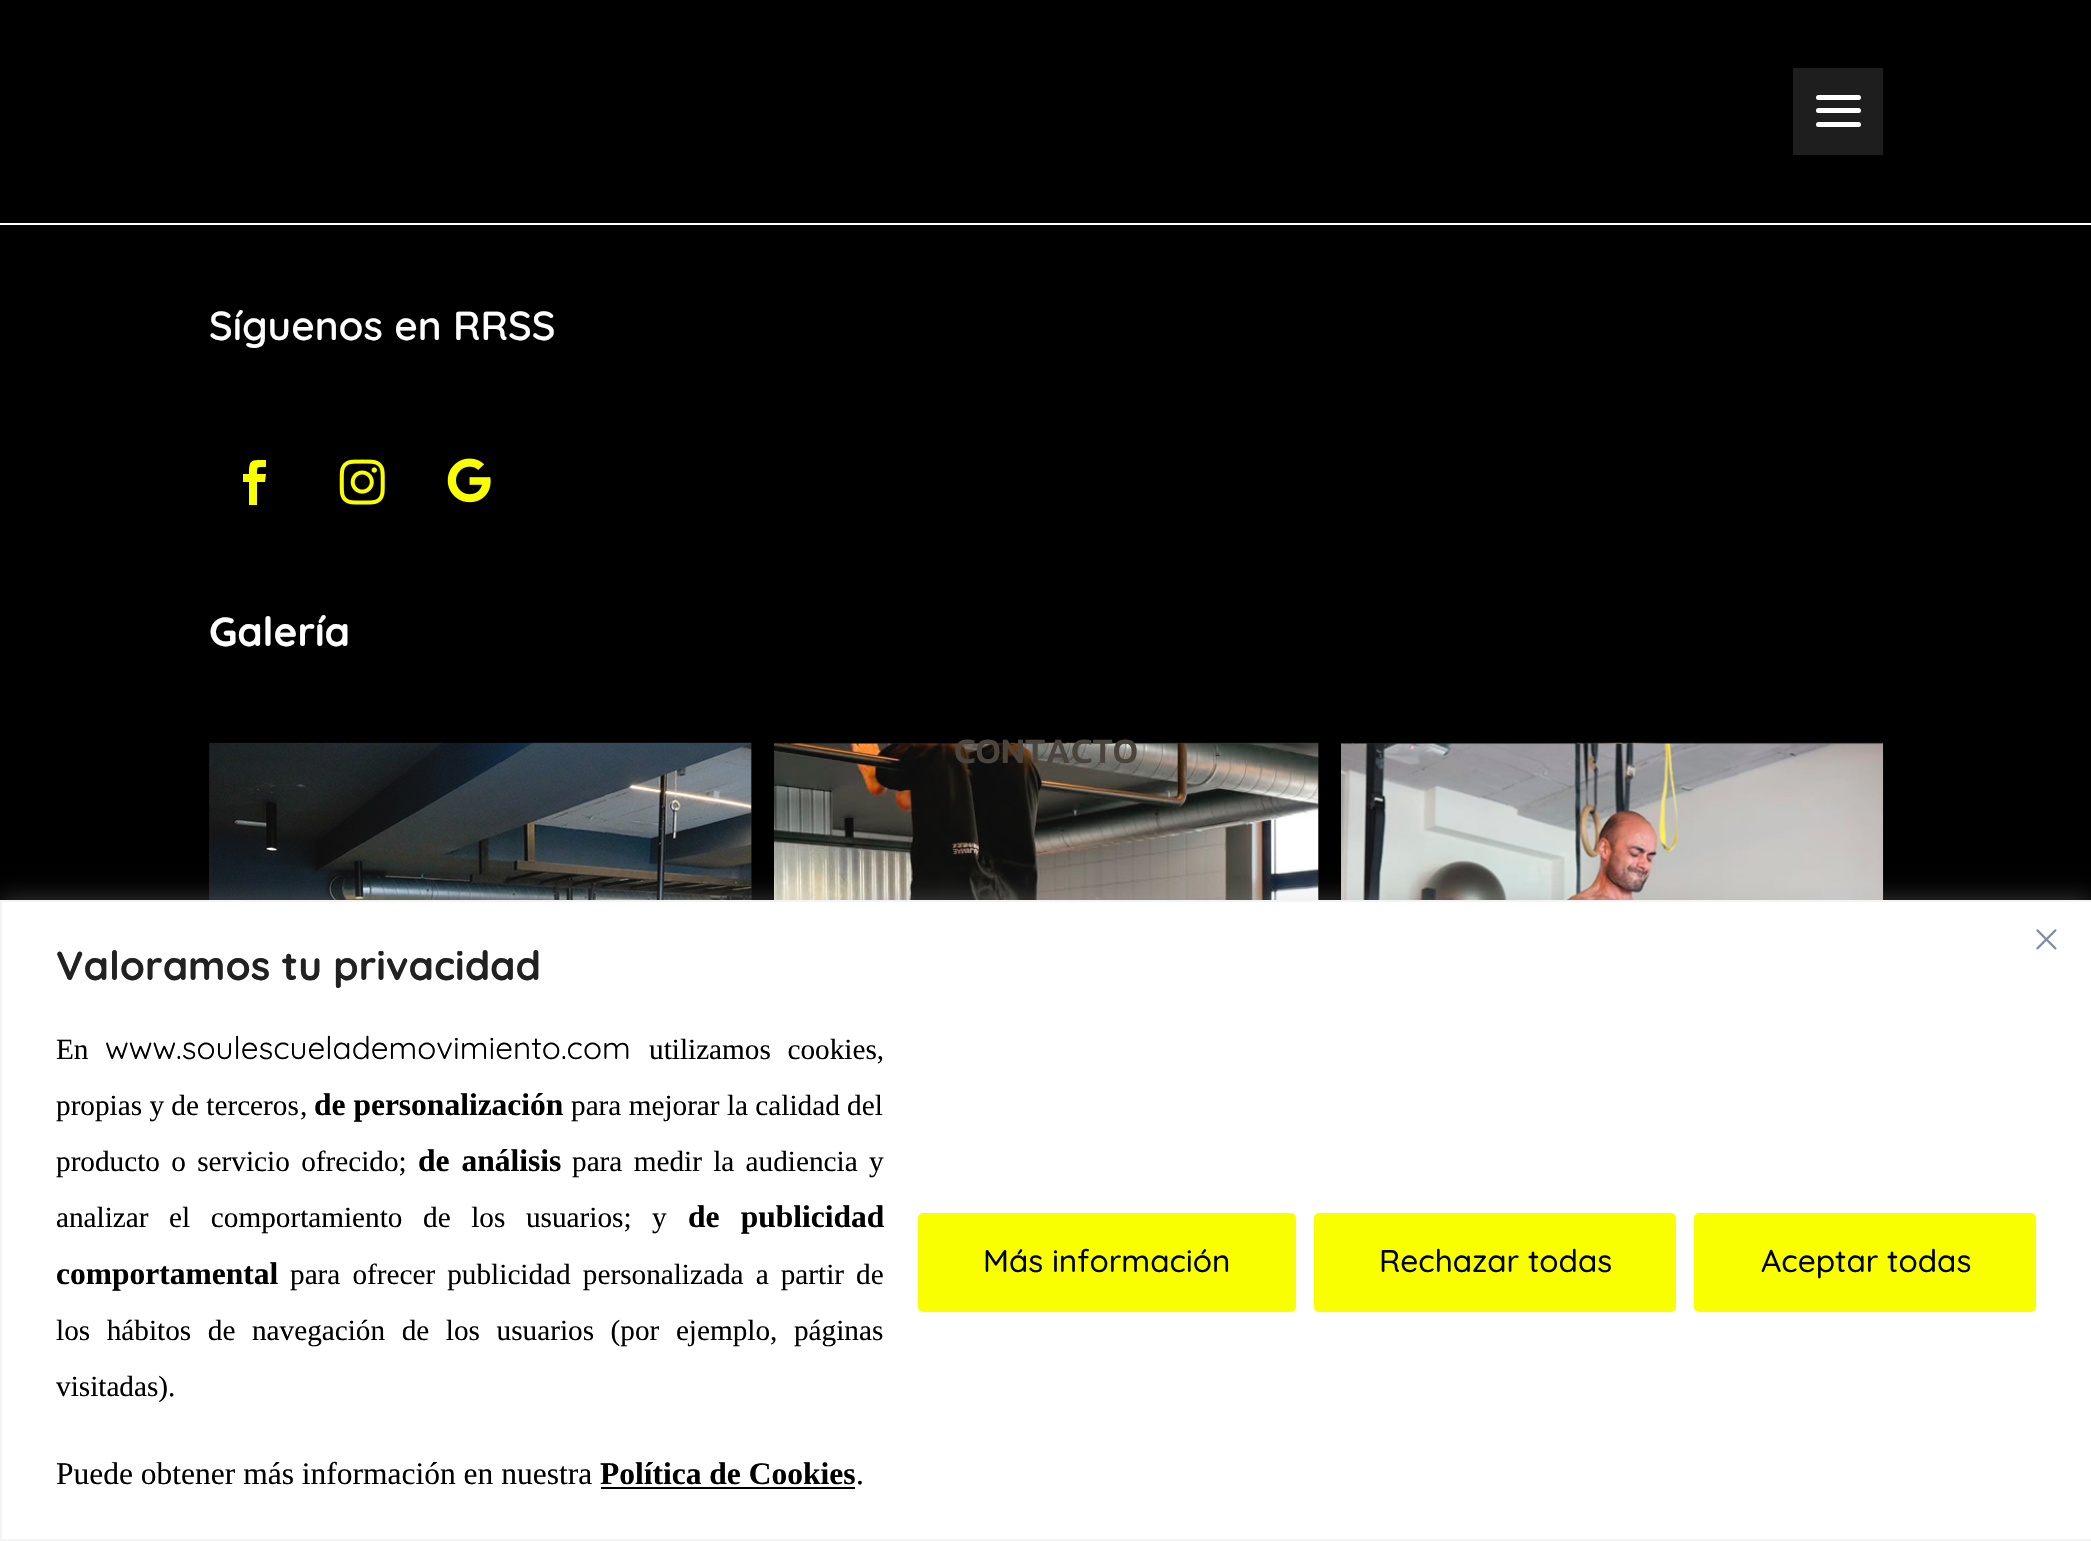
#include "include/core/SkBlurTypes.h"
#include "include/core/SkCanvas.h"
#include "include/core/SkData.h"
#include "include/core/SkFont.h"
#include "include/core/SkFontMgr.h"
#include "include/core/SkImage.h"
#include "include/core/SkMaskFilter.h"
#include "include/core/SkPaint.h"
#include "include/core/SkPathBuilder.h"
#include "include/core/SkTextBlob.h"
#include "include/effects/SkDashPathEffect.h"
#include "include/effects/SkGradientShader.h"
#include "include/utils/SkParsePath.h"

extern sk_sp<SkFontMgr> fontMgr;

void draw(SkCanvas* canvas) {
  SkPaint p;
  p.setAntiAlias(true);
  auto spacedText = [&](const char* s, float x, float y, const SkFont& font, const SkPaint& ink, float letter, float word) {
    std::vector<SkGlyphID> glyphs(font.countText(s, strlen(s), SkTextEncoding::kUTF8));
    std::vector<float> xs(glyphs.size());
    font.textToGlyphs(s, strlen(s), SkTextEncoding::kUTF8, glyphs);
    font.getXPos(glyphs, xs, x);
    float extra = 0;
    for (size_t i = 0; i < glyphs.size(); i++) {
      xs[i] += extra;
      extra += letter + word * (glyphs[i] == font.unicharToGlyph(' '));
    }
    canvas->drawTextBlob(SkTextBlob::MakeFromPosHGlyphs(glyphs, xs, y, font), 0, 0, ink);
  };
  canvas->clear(SK_ColorBLACK);
  p.setColor(SkColorSetRGB(13, 13, 13));
  canvas->drawRect(SkRect::MakeLTRB(1318, 743, 1319, 900), p);
  canvas->drawRect(SkRect::MakeLTRB(209, 743, 752, 900), p);
  p.setColor(SkColorSetRGB(250, 255, 0));
  canvas->drawPath(SkPathBuilder().moveTo(249, 505).lineTo(257, 505).lineTo(257, 482).lineTo(265, 482).lineTo(266, 474).lineTo(257, 474).cubicTo(257, 466, 257, 467, 266, 467).lineTo(266, 460).cubicTo(251, 460, 249, 459, 249, 474).lineTo(243, 474).lineTo(243, 482).lineTo(249, 482).close().detach(), p);
  canvas->drawImageRect(SkImages::DeferredFromEncodedData(SkData::MakeFromFileName("images/1.png")), SkRect::MakeLTRB(339, 459, 385, 505), SkSamplingOptions());
  canvas->drawImageRect(SkImages::DeferredFromEncodedData(SkData::MakeFromFileName("images/2.png")), SkRect::MakeLTRB(447, 458, 491, 503), SkSamplingOptions());
  canvas->drawImageRect(SkImages::DeferredFromEncodedData(SkData::MakeFromFileName("images/3.png")), SkRect::MakeLTRB(209, 742, 752, 900), SkSamplingOptions());
  canvas->drawImageRect(SkImages::DeferredFromEncodedData(SkData::MakeFromFileName("images/4.png")), SkRect::MakeLTRB(774, 742, 1319, 900), SkSamplingOptions());
  canvas->drawImageRect(SkImages::DeferredFromEncodedData(SkData::MakeFromFileName("images/5.png")), SkRect::MakeLTRB(1341, 742, 1884, 900), SkSamplingOptions());
  p.setColor(SK_ColorWHITE);
  canvas->drawRect(SkRect::MakeLTRB(0, 223, 2091, 225), p);
  p.setColor(SkColorSetRGB(30, 30, 30));
  canvas->drawRect(SkRect::MakeLTRB(1793, 68, 1883, 155), p);
  p.setColor(SK_ColorWHITE);
  canvas->drawRoundRect(SkRect::MakeLTRB(1816, 108, 1861, 113), 2.5f, 2.5f, p);
  canvas->drawRoundRect(SkRect::MakeLTRB(1816, 95, 1861, 100), 2.5f, 2.5f, p);
  canvas->drawRoundRect(SkRect::MakeLTRB(1816, 122, 1861, 127), 2.5f, 2.5f, p);
  p.setColor(SkColorSetARGB(77, 172, 171, 171));
  p.setMaskFilter(SkMaskFilter::MakeBlur(kNormal_SkBlurStyle, 11));
  canvas->drawRect(SkRect::MakeLTRB(0, 898, 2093, 1539), p);
  p.setMaskFilter(nullptr);
  p.setColor(SK_ColorWHITE);
  canvas->drawRect(SkRect::MakeLTRB(1, 901, 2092, 1540), p);
  p.setStyle(SkPaint::kStroke_Style);
  p.setStrokeWidth(2);
  p.setColor(SkColorSetRGB(244, 244, 244));
  canvas->drawRect(SkRect::MakeLTRB(1, 901, 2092, 1540), p);
  canvas->drawImageRect(SkImages::DeferredFromEncodedData(SkData::MakeFromFileName("images/6.png")), SkRect::MakeLTRB(2036, 929, 2057, 950), SkSamplingOptions());
  p.setStyle(SkPaint::kFill_Style);
  p.setColor(SK_ColorBLACK);
  canvas->drawRect(SkRect::MakeLTRB(601, 1487, 855, 1489), p);
  p.setColor(SkColorSetRGB(250, 255, 0));
  canvas->drawRoundRect(SkRect::MakeLTRB(920.5f, 1215.5f, 1293.5f, 1309.5f), 2.5f, 2.5f, p);
  p.setStyle(SkPaint::kStroke_Style);
  p.setStrokeWidth(5);
  canvas->drawRoundRect(SkRect::MakeLTRB(920.5f, 1215.5f, 1293.5f, 1309.5f), 2.5f, 2.5f, p);
  p.setStyle(SkPaint::kFill_Style);
  canvas->drawRoundRect(SkRect::MakeLTRB(1316.5f, 1215.5f, 1673.5f, 1309.5f), 2.5f, 2.5f, p);
  p.setStyle(SkPaint::kStroke_Style);
  canvas->drawRoundRect(SkRect::MakeLTRB(1316.5f, 1215.5f, 1673.5f, 1309.5f), 2.5f, 2.5f, p);
  p.setStyle(SkPaint::kFill_Style);
  canvas->drawRoundRect(SkRect::MakeLTRB(1696.5f, 1215.5f, 2033.5f, 1309.5f), 2.5f, 2.5f, p);
  p.setStyle(SkPaint::kStroke_Style);
  canvas->drawRoundRect(SkRect::MakeLTRB(1696.5f, 1215.5f, 2033.5f, 1309.5f), 2.5f, 2.5f, p);
  SkFont font1(fontMgr->matchFamilyStyle("Quicksand", SkFontStyle(600, SkFontStyle::kNormal_Width, SkFontStyle::kUpright_Slant)), 40.5f);
  font1.setSubpixel(true);
  p.setStyle(SkPaint::kFill_Style);
  p.setColor(SK_ColorWHITE);
  canvas->drawString("Síguenos en RRSS", 209, 340, font1, p);
  SkFont font2(fontMgr->matchFamilyStyle("Quicksand", SkFontStyle(300, SkFontStyle::kNormal_Width, SkFontStyle::kUpright_Slant)), 40.5f);
  font2.setSubpixel(true);
  canvas->drawString("Galería", 209, 646, font2, p);
  SkFont font3(fontMgr->matchFamilyStyle("Kanit", SkFontStyle(500, SkFontStyle::kNormal_Width, SkFontStyle::kUpright_Slant)), 36);
  font3.setSubpixel(true);
  p.setColor(SkColorSetRGB(74, 68, 61));
  canvas->drawString("CONTACTO", 954, 763, font3, p);
  p.setColor(SkColorSetRGB(33, 33, 33));
  canvas->drawString("Valoramos tu privacidad", 56, 980, font2, p);
  SkFont font4(fontMgr->matchFamilyStyle("Liberation Serif", SkFontStyle::Normal()), 29.25f);
  font4.setSubpixel(true);
  p.setColor(SK_ColorBLACK);
  canvas->drawString("En", 56, 1059, font4, p);
  SkFont font5(fontMgr->matchFamilyStyle("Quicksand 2", SkFontStyle(300, SkFontStyle::kNormal_Width, SkFontStyle::kUpright_Slant)), 31.5f);
  font5.setSubpixel(true);
  canvas->drawString("www.soulescuelademovimiento.com", 105, 1059, font5, p);
  spacedText("utilizamos cookies,", 649, 1059, font4, p, 0, 9.25f);
  canvas->drawString("propias y de terceros", 56, 1115, font4, p);
  canvas->drawString(",", 300, 1115, font4, p);
  SkFont font6(fontMgr->matchFamilyStyle("Liberation Serif", SkFontStyle::Bold()), 31.5f);
  font6.setSubpixel(true);
  canvas->drawString("de personalización", 314, 1115, font6, p);
  canvas->drawString("para mejorar la calidad del", 571, 1115, font4, p);
  spacedText("producto o servicio ofrecido;", 56, 1171, font4, p, 0, 4);
  spacedText("de análisis", 418, 1171, font6, p, 0, 4);
  spacedText("para medir la audiencia y", 572, 1171, font4, p, 0, 4);
  spacedText("analizar el comportamiento de los usuarios; y", 56, 1227, font4, p, 0, 13.25f);
  spacedText("de publicidad", 688, 1227, font6, p, 0, 13.25f);
  canvas->drawString("comportamental", 56, 1284, font6, p);
  spacedText("para ofrecer publicidad personalizada a partir de", 290, 1284, font4, p, 0, 4.75f);
  spacedText("los hábitos de navegación de los usuarios (por ejemplo, páginas", 56, 1340, font4, p, 0, 9.25f);
  canvas->drawString("visitadas).", 56, 1396, font4, p);
  SkFont font7(fontMgr->matchFamilyStyle("Liberation Serif", SkFontStyle::Normal()), 31.5f);
  font7.setSubpixel(true);
  canvas->drawString("Puede obtener más información en nuestra", 56, 1484, font7, p);
  canvas->drawString("Política de Cookies", 600, 1484, font6, p);
  canvas->drawString(".", 856, 1484, font7, p);
  SkFont font8(fontMgr->matchFamilyStyle("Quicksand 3", SkFontStyle(300, SkFontStyle::kNormal_Width, SkFontStyle::kUpright_Slant)), 31.5f);
  font8.setSubpixel(true);
  canvas->drawString("Más información", 983, 1272, font8, p);
  canvas->drawString("Rechazar todas", 1379, 1272, font8, p);
  canvas->drawString("Aceptar todas", 1761, 1272, font8, p);
}
